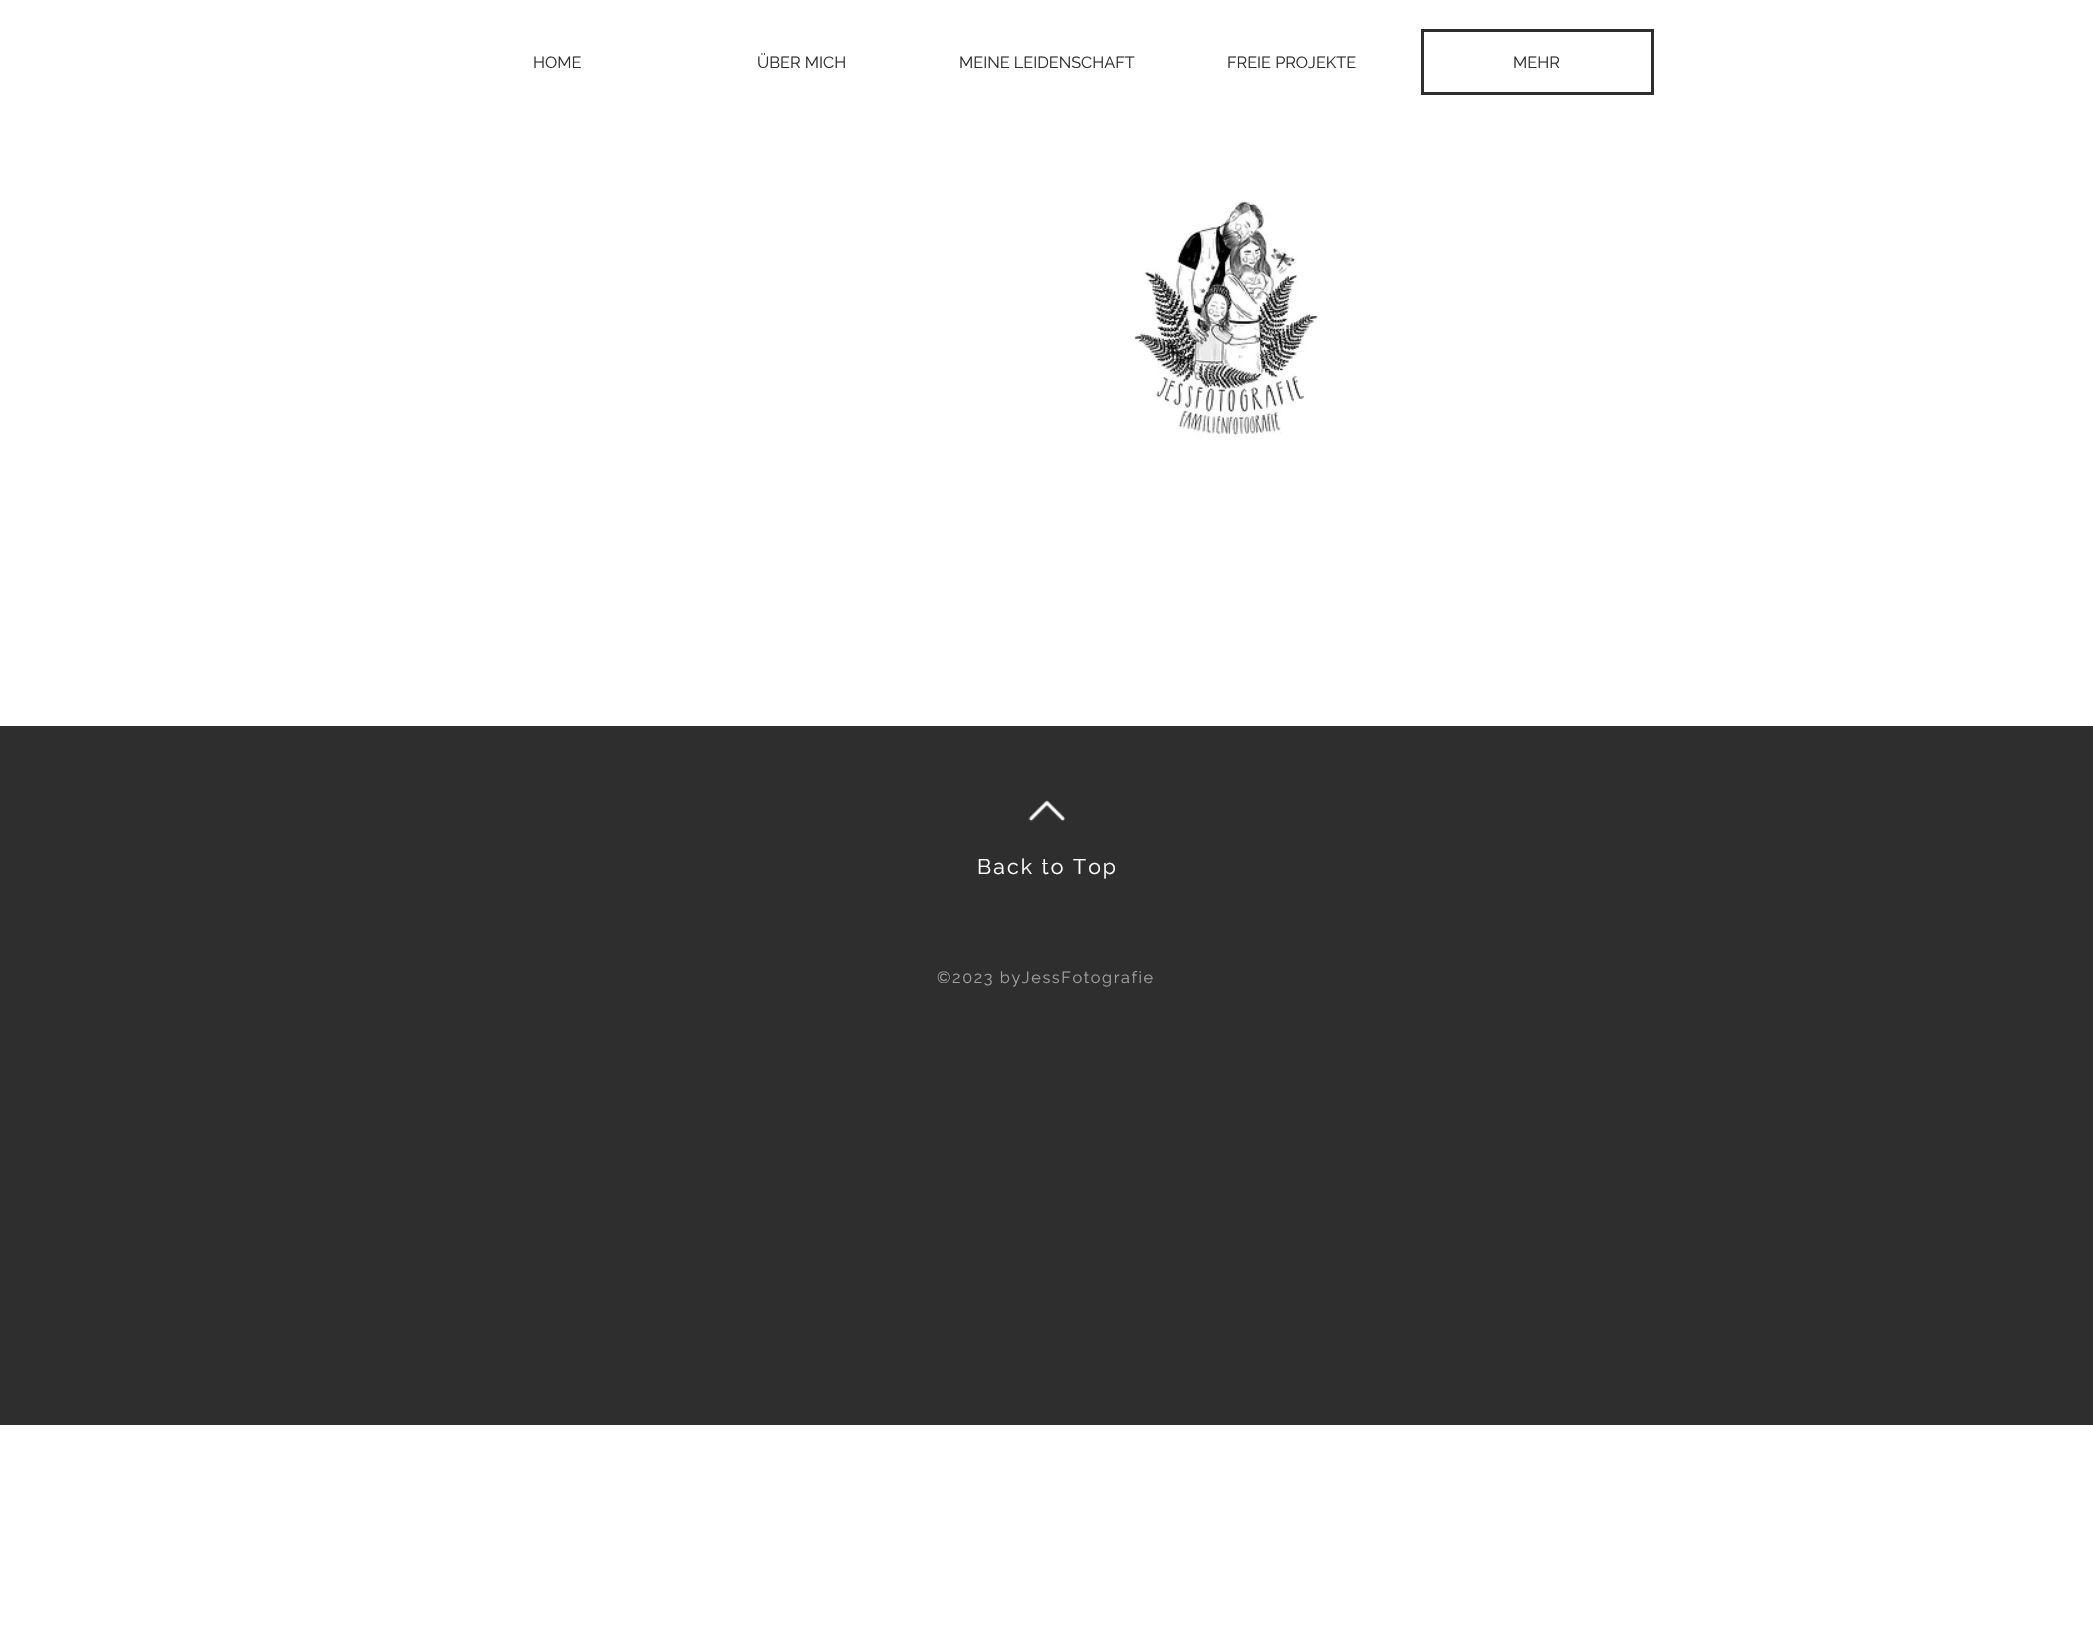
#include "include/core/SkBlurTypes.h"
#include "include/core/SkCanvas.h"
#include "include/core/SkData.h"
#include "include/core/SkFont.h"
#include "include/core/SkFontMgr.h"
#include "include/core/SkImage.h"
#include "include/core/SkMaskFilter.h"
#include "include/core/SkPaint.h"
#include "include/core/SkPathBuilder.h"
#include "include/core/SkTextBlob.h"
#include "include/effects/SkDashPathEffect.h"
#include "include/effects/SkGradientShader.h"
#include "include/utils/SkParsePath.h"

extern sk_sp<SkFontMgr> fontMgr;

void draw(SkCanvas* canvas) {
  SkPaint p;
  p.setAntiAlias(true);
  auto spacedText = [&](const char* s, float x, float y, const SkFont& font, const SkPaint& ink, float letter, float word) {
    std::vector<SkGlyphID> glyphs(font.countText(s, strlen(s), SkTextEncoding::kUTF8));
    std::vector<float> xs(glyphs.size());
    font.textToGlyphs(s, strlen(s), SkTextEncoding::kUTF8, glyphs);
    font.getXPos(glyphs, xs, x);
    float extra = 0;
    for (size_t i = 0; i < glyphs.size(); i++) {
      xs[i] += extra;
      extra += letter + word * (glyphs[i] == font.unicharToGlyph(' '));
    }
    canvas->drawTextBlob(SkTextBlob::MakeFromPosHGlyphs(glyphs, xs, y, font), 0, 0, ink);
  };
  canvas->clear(SK_ColorWHITE);
  p.setStyle(SkPaint::kStroke_Style);
  p.setStrokeWidth(3);
  p.setColor(SkColorSetRGB(47, 46, 46));
  canvas->drawRect(SkRect::MakeLTRB(1422.5f, 30.5f, 1652.5f, 93.5f), p);
  canvas->drawImageRect(SkImages::DeferredFromEncodedData(SkData::MakeFromFileName("images/1.png")), SkRect::MakeLTRB(1133, 200, 1318, 439), SkSamplingOptions());
  p.setStyle(SkPaint::kFill_Style);
  canvas->drawRect(SkRect::MakeLTRB(0, 726, 2093, 1425), p);
  canvas->drawImageRect(SkImages::DeferredFromEncodedData(SkData::MakeFromFileName("images/2.png")), SkRect::MakeLTRB(1028, 800, 1066, 822), SkSamplingOptions());
  SkFont font1(fontMgr->matchFamilyStyle("Raleway", SkFontStyle::Normal()), 16.25f);
  font1.setSubpixel(true);
  canvas->drawString("HOME", 533, 68, font1, p);
  canvas->drawString("ÜBER MICH", 757, 68, font1, p);
  canvas->drawString("MEINE LEIDENSCHAFT", 959, 68, font1, p);
  canvas->drawString("FREIE PROJEKTE", 1227, 68, font1, p);
  canvas->drawString("MEHR", 1513, 68, font1, p);
  SkFont font2(fontMgr->matchFamilyStyle("Raleway", SkFontStyle::Normal()), 21.25f);
  font2.setSubpixel(true);
  p.setColor(SK_ColorWHITE);
  spacedText("Back to Top", 977, 874, font2, p, 2.1f, 0);
  p.setColor(SkColorSetRGB(160, 160, 159));
  spacedText("©2023 byJessFotografie", 937, 983, font1, p, 1.6f, 0);
}
